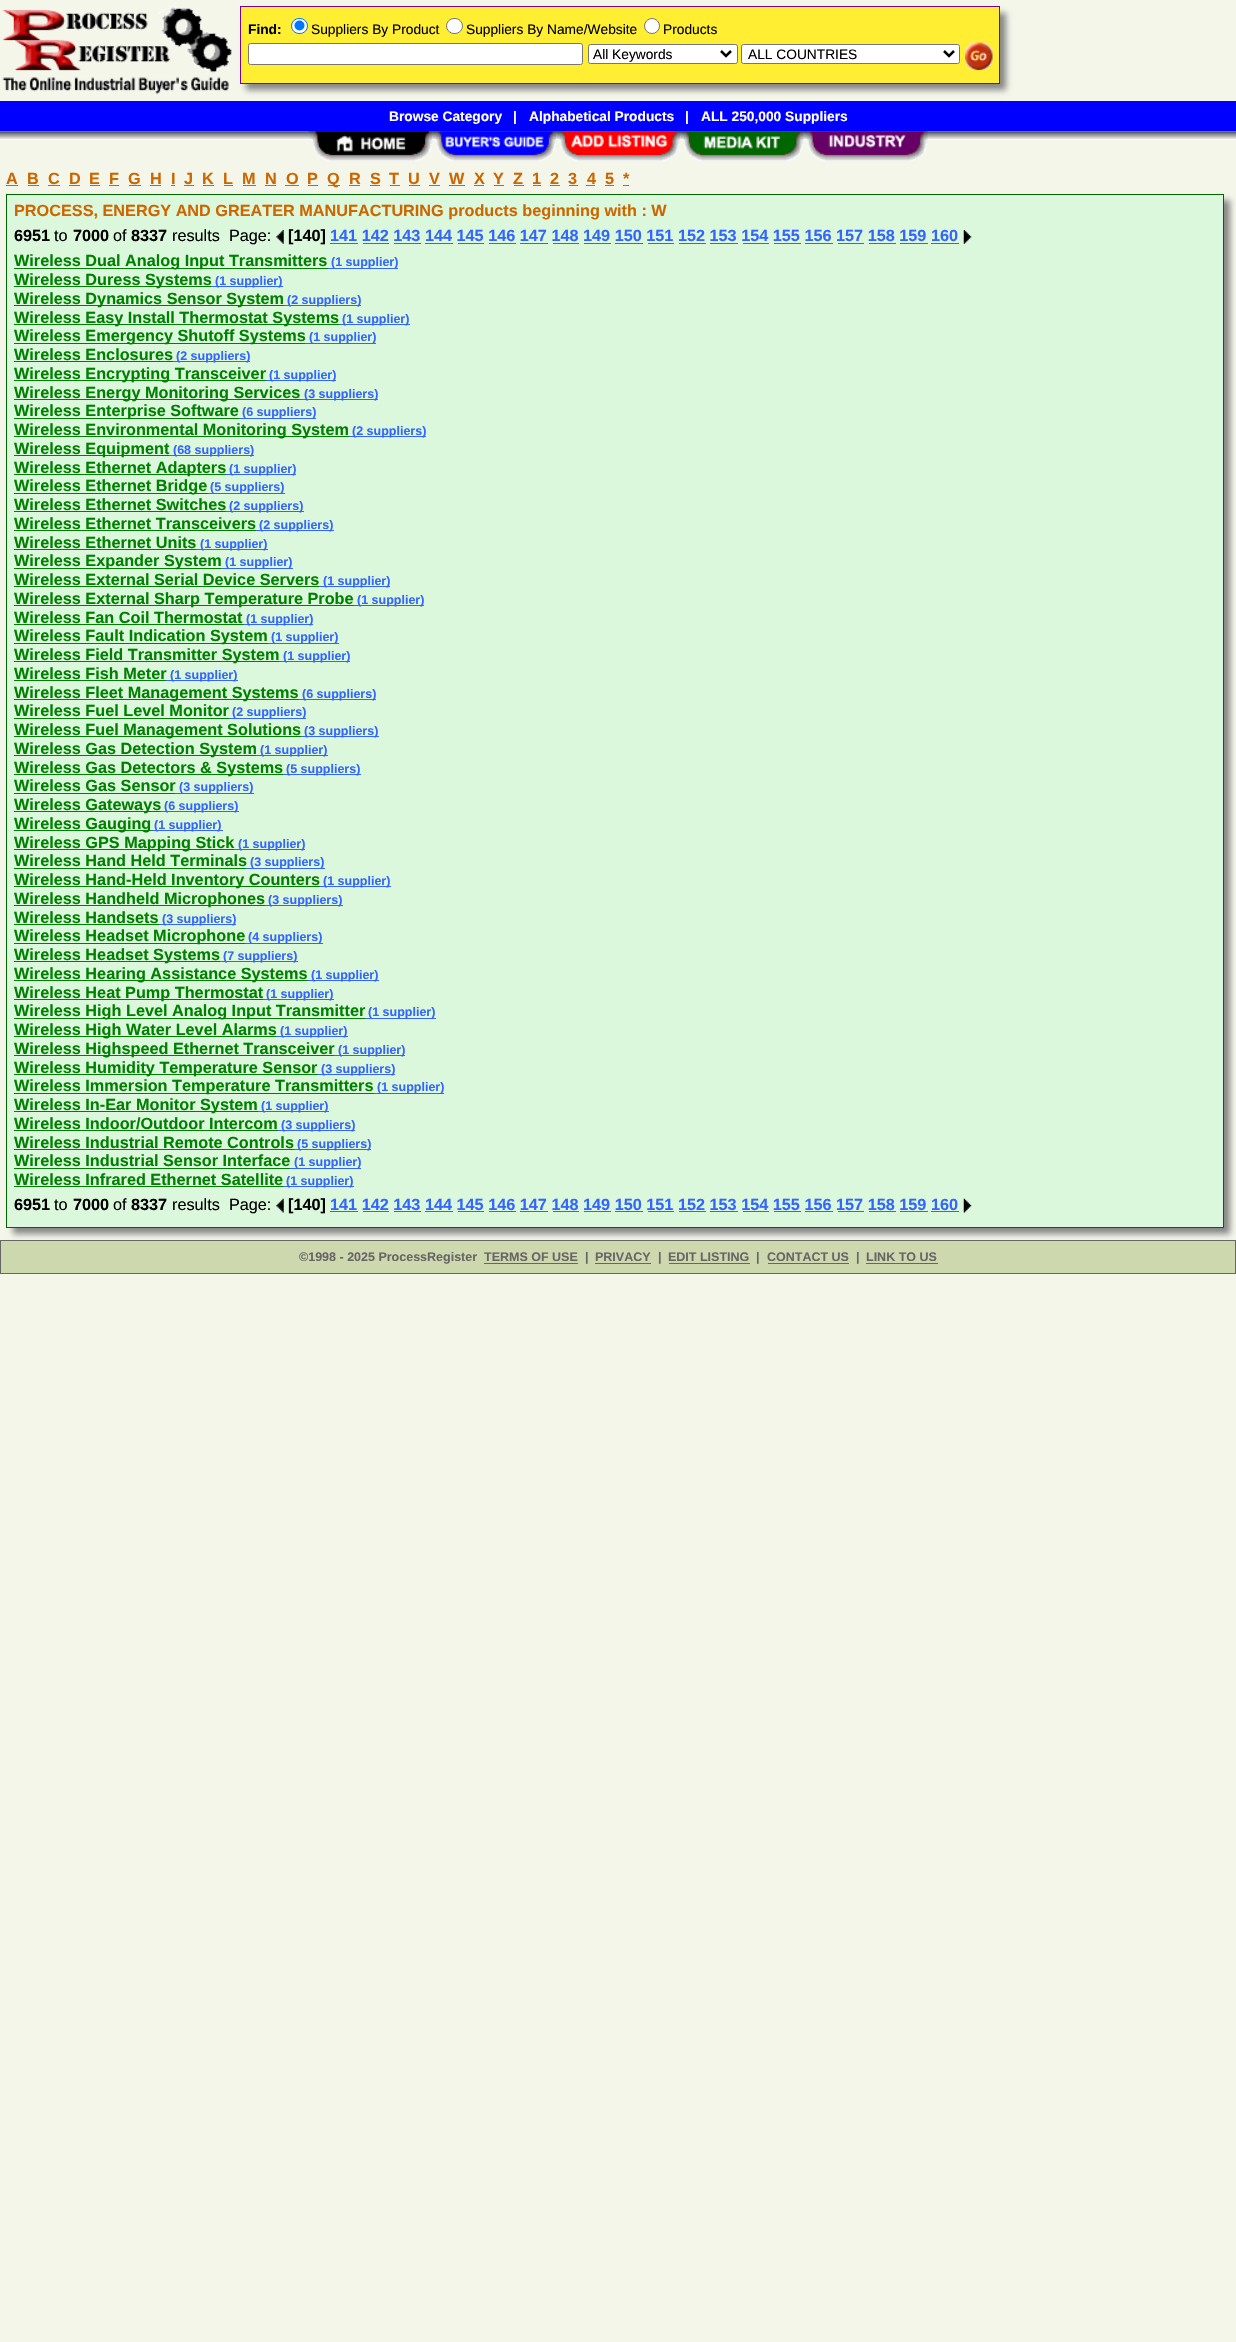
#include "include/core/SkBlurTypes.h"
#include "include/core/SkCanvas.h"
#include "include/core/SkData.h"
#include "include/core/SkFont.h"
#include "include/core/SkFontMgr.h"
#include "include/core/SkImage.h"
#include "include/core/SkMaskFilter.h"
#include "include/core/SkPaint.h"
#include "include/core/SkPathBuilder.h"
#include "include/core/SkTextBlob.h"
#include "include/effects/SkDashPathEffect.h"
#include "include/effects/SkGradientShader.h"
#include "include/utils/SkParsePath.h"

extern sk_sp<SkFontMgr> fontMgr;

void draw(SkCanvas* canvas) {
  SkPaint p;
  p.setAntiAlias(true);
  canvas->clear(SkColorSetRGB(243, 246, 233));
  canvas->drawImageRect(SkImages::DeferredFromEncodedData(SkData::MakeFromFileName("images/1.png")), SkRect::MakeLTRB(2, 2, 233, 94), SkSamplingOptions());
  p.setColor(SkColorSetRGB(136, 136, 136));
  p.setMaskFilter(SkMaskFilter::MakeBlur(kNormal_SkBlurStyle, 3));
  canvas->drawRect(SkRect::MakeLTRB(246, 13, 1006, 90), p);
  p.setMaskFilter(nullptr);
  p.setColor(SkColorSetRGB(255, 238, 49));
  canvas->drawRect(SkRect::MakeLTRB(240.5f, 6.5f, 999.5f, 83.5f), p);
  p.setStyle(SkPaint::kStroke_Style);
  p.setStrokeWidth(1);
  p.setColor(SkColorSetRGB(128, 0, 128));
  canvas->drawRect(SkRect::MakeLTRB(240.5f, 6.5f, 999.5f, 83.5f), p);
  p.setStyle(SkPaint::kFill_Style);
  p.setColor(SK_ColorWHITE);
  canvas->drawRoundRect(SkRect::MakeLTRB(291.5f, 18.5f, 307.5f, 33.5f), 7.5f, 7.5f, p);
  p.setStyle(SkPaint::kStroke_Style);
  p.setColor(SkColorSetRGB(0, 117, 255));
  canvas->drawRoundRect(SkRect::MakeLTRB(291.5f, 18.5f, 307.5f, 33.5f), 7.5f, 7.5f, p);
  p.setStyle(SkPaint::kFill_Style);
  canvas->drawCircle(299.5f, 25.5f, 5, p);
  p.setColor(SK_ColorWHITE);
  canvas->drawRoundRect(SkRect::MakeLTRB(446.5f, 18.5f, 462.5f, 33.5f), 7.5f, 7.5f, p);
  p.setStyle(SkPaint::kStroke_Style);
  p.setColor(SkColorSetRGB(118, 118, 118));
  canvas->drawRoundRect(SkRect::MakeLTRB(446.5f, 18.5f, 462.5f, 33.5f), 7.5f, 7.5f, p);
  p.setStyle(SkPaint::kFill_Style);
  p.setColor(SK_ColorWHITE);
  canvas->drawCircle(652, 26, 7.5f, p);
  p.setStyle(SkPaint::kStroke_Style);
  p.setColor(SkColorSetRGB(118, 118, 118));
  canvas->drawCircle(652, 26, 7.5f, p);
  p.setStyle(SkPaint::kFill_Style);
  p.setColor(SK_ColorWHITE);
  canvas->drawRoundRect(SkRect::MakeLTRB(248.5f, 43.5f, 582.5f, 64.5f), 2, 2, p);
  p.setStyle(SkPaint::kStroke_Style);
  p.setColor(SkColorSetRGB(118, 118, 118));
  canvas->drawRoundRect(SkRect::MakeLTRB(248.5f, 43.5f, 582.5f, 64.5f), 2, 2, p);
  p.setStyle(SkPaint::kFill_Style);
  p.setColor(SK_ColorWHITE);
  canvas->drawRoundRect(SkRect::MakeLTRB(588.5f, 44.5f, 737.5f, 63.5f), 2, 2, p);
  p.setStyle(SkPaint::kStroke_Style);
  p.setColor(SkColorSetRGB(118, 118, 118));
  canvas->drawRoundRect(SkRect::MakeLTRB(588.5f, 44.5f, 737.5f, 63.5f), 2, 2, p);
  p.setStrokeWidth(2.5f);
  p.setColor(SK_ColorBLACK);
  canvas->drawPath(SkPathBuilder().moveTo(721, 51).lineTo(726, 56).lineTo(731, 51).detach(), p);
  p.setStyle(SkPaint::kFill_Style);
  p.setColor(SK_ColorWHITE);
  canvas->drawRoundRect(SkRect::MakeLTRB(741.5f, 44.5f, 959.5f, 63.5f), 2, 2, p);
  p.setStyle(SkPaint::kStroke_Style);
  p.setStrokeWidth(1);
  p.setColor(SkColorSetRGB(118, 118, 118));
  canvas->drawRoundRect(SkRect::MakeLTRB(741.5f, 44.5f, 959.5f, 63.5f), 2, 2, p);
  p.setStrokeWidth(2.5f);
  p.setColor(SK_ColorBLACK);
  canvas->drawPath(SkPathBuilder().moveTo(944, 51).lineTo(949, 56).lineTo(954, 51).detach(), p);
  canvas->drawImageRect(SkImages::DeferredFromEncodedData(SkData::MakeFromFileName("images/2.png")), SkRect::MakeLTRB(965, 42, 993, 70), SkSamplingOptions());
  p.setStyle(SkPaint::kFill_Style);
  p.setColor(SkColorSetRGB(0, 0, 255));
  canvas->drawRect(SkRect::MakeLTRB(0, 101, 1236, 131), p);
  canvas->drawImageRect(SkImages::DeferredFromEncodedData(SkData::MakeFromFileName("images/3.png")), SkRect::MakeLTRB(0, 131, 1236, 140), SkSamplingOptions());
  canvas->drawImageRect(SkImages::DeferredFromEncodedData(SkData::MakeFromFileName("images/4.png")), SkRect::MakeLTRB(308, 131, 433, 162), SkSamplingOptions());
  canvas->drawImageRect(SkImages::DeferredFromEncodedData(SkData::MakeFromFileName("images/5.png")), SkRect::MakeLTRB(432, 131, 557, 162), SkSamplingOptions());
  canvas->drawImageRect(SkImages::DeferredFromEncodedData(SkData::MakeFromFileName("images/6.png")), SkRect::MakeLTRB(556, 131, 680, 162), SkSamplingOptions());
  canvas->drawImageRect(SkImages::DeferredFromEncodedData(SkData::MakeFromFileName("images/7.png")), SkRect::MakeLTRB(680, 131, 804, 162), SkSamplingOptions());
  canvas->drawImageRect(SkImages::DeferredFromEncodedData(SkData::MakeFromFileName("images/8.png")), SkRect::MakeLTRB(803, 131, 928, 162), SkSamplingOptions());
  p.setColor(SkColorSetRGB(204, 102, 0));
  canvas->drawRect(SkRect::MakeLTRB(6, 185, 18, 186), p);
  canvas->drawRect(SkRect::MakeLTRB(28, 185, 39, 186), p);
  canvas->drawRect(SkRect::MakeLTRB(48, 185, 60, 186), p);
  canvas->drawRect(SkRect::MakeLTRB(69, 185, 80, 186), p);
  canvas->drawRect(SkRect::MakeLTRB(90, 185, 100, 186), p);
  canvas->drawRect(SkRect::MakeLTRB(109, 185, 119, 186), p);
  canvas->drawRect(SkRect::MakeLTRB(129, 185, 141, 186), p);
  canvas->drawRect(SkRect::MakeLTRB(150, 185, 161, 186), p);
  canvas->drawRect(SkRect::MakeLTRB(171, 185, 175, 186), p);
  canvas->drawRect(SkRect::MakeLTRB(184, 185, 194, 186), p);
  canvas->drawRect(SkRect::MakeLTRB(203, 185, 214, 186), p);
  canvas->drawRect(SkRect::MakeLTRB(224, 185, 233, 186), p);
  canvas->drawRect(SkRect::MakeLTRB(243, 185, 256, 186), p);
  canvas->drawRect(SkRect::MakeLTRB(265, 185, 276, 186), p);
  canvas->drawRect(SkRect::MakeLTRB(285, 185, 299, 186), p);
  canvas->drawRect(SkRect::MakeLTRB(308, 185, 318, 186), p);
  canvas->drawRect(SkRect::MakeLTRB(328, 185, 340, 186), p);
  canvas->drawRect(SkRect::MakeLTRB(349, 185, 360, 186), p);
  canvas->drawRect(SkRect::MakeLTRB(370, 185, 380, 186), p);
  canvas->drawRect(SkRect::MakeLTRB(390, 185, 400, 186), p);
  canvas->drawRect(SkRect::MakeLTRB(409, 185, 420, 186), p);
  canvas->drawRect(SkRect::MakeLTRB(429, 185, 440, 186), p);
  canvas->drawRect(SkRect::MakeLTRB(449, 185, 465, 186), p);
  canvas->drawRect(SkRect::MakeLTRB(474, 185, 484, 186), p);
  canvas->drawRect(SkRect::MakeLTRB(494, 185, 504, 186), p);
  canvas->drawRect(SkRect::MakeLTRB(514, 185, 524, 186), p);
  canvas->drawRect(SkRect::MakeLTRB(533, 185, 541, 186), p);
  canvas->drawRect(SkRect::MakeLTRB(550, 185, 560, 186), p);
  canvas->drawRect(SkRect::MakeLTRB(569, 185, 578, 186), p);
  canvas->drawRect(SkRect::MakeLTRB(586, 185, 595, 186), p);
  canvas->drawRect(SkRect::MakeLTRB(605, 185, 614, 186), p);
  canvas->drawRect(SkRect::MakeLTRB(623, 185, 629, 186), p);
  p.setColor(SkColorSetRGB(136, 136, 136));
  p.setMaskFilter(SkMaskFilter::MakeBlur(kNormal_SkBlurStyle, 3));
  canvas->drawRect(SkRect::MakeLTRB(13, 200, 1230, 1234), p);
  p.setMaskFilter(nullptr);
  p.setColor(SkColorSetRGB(219, 247, 220));
  canvas->drawRect(SkRect::MakeLTRB(6.5f, 194.5f, 1223.5f, 1227.5f), p);
  p.setStyle(SkPaint::kStroke_Style);
  p.setStrokeWidth(1);
  p.setColor(SkColorSetRGB(0, 102, 0));
  canvas->drawRect(SkRect::MakeLTRB(6.5f, 194.5f, 1223.5f, 1227.5f), p);
  canvas->drawImageRect(SkImages::DeferredFromEncodedData(SkData::MakeFromFileName("images/9.png")), SkRect::MakeLTRB(276, 230, 284, 244), SkSamplingOptions());
  p.setStyle(SkPaint::kFill_Style);
  p.setColor(SkColorSetRGB(51, 102, 255));
  canvas->drawRect(SkRect::MakeLTRB(330, 243, 358, 244), p);
  canvas->drawImageRect(SkImages::DeferredFromEncodedData(SkData::MakeFromFileName("images/10.png")), SkRect::MakeLTRB(963, 230, 972, 244), SkSamplingOptions());
  canvas->drawRect(SkRect::MakeLTRB(363, 243, 389, 244), p);
  canvas->drawRect(SkRect::MakeLTRB(394, 243, 421, 244), p);
  canvas->drawRect(SkRect::MakeLTRB(425, 243, 453, 244), p);
  canvas->drawRect(SkRect::MakeLTRB(458, 243, 484, 244), p);
  canvas->drawRect(SkRect::MakeLTRB(489, 243, 516, 244), p);
  canvas->drawRect(SkRect::MakeLTRB(520, 243, 548, 244), p);
  canvas->drawRect(SkRect::MakeLTRB(553, 243, 579, 244), p);
  canvas->drawRect(SkRect::MakeLTRB(584, 243, 611, 244), p);
  canvas->drawRect(SkRect::MakeLTRB(615, 243, 643, 244), p);
  canvas->drawRect(SkRect::MakeLTRB(648, 243, 674, 244), p);
  canvas->drawRect(SkRect::MakeLTRB(679, 243, 706, 244), p);
  canvas->drawRect(SkRect::MakeLTRB(710, 243, 738, 244), p);
  canvas->drawRect(SkRect::MakeLTRB(743, 243, 769, 244), p);
  canvas->drawRect(SkRect::MakeLTRB(774, 243, 801, 244), p);
  canvas->drawRect(SkRect::MakeLTRB(805, 243, 833, 244), p);
  canvas->drawRect(SkRect::MakeLTRB(838, 243, 864, 244), p);
  canvas->drawRect(SkRect::MakeLTRB(869, 243, 896, 244), p);
  canvas->drawRect(SkRect::MakeLTRB(900, 243, 928, 244), p);
  canvas->drawRect(SkRect::MakeLTRB(931, 243, 959, 244), p);
  p.setColor(SkColorSetRGB(0, 128, 0));
  canvas->drawRect(SkRect::MakeLTRB(14, 268, 328, 269), p);
  p.setColor(SkColorSetRGB(51, 102, 255));
  canvas->drawRect(SkRect::MakeLTRB(328, 268, 398, 269), p);
  p.setColor(SkColorSetRGB(0, 128, 0));
  canvas->drawRect(SkRect::MakeLTRB(14, 286, 211, 287), p);
  p.setColor(SkColorSetRGB(51, 102, 255));
  canvas->drawRect(SkRect::MakeLTRB(211, 286, 283, 287), p);
  p.setColor(SkColorSetRGB(0, 128, 0));
  canvas->drawRect(SkRect::MakeLTRB(14, 305, 284, 306), p);
  p.setColor(SkColorSetRGB(51, 102, 255));
  canvas->drawRect(SkRect::MakeLTRB(284, 305, 361, 306), p);
  p.setColor(SkColorSetRGB(0, 128, 0));
  canvas->drawRect(SkRect::MakeLTRB(14, 324, 339, 325), p);
  p.setColor(SkColorSetRGB(51, 102, 255));
  canvas->drawRect(SkRect::MakeLTRB(339, 324, 410, 325), p);
  p.setColor(SkColorSetRGB(0, 128, 0));
  canvas->drawRect(SkRect::MakeLTRB(14, 343, 305, 344), p);
  p.setColor(SkColorSetRGB(51, 102, 255));
  canvas->drawRect(SkRect::MakeLTRB(305, 343, 376, 344), p);
  p.setColor(SkColorSetRGB(0, 128, 0));
  canvas->drawRect(SkRect::MakeLTRB(14, 361, 173, 362), p);
  p.setColor(SkColorSetRGB(51, 102, 255));
  canvas->drawRect(SkRect::MakeLTRB(173, 361, 250, 362), p);
  p.setColor(SkColorSetRGB(0, 128, 0));
  canvas->drawRect(SkRect::MakeLTRB(14, 380, 266, 381), p);
  p.setColor(SkColorSetRGB(51, 102, 255));
  canvas->drawRect(SkRect::MakeLTRB(266, 380, 336, 381), p);
  p.setColor(SkColorSetRGB(0, 128, 0));
  canvas->drawRect(SkRect::MakeLTRB(14, 399, 300, 400), p);
  p.setColor(SkColorSetRGB(51, 102, 255));
  canvas->drawRect(SkRect::MakeLTRB(300, 399, 378, 400), p);
  p.setColor(SkColorSetRGB(0, 128, 0));
  canvas->drawRect(SkRect::MakeLTRB(14, 418, 239, 419), p);
  p.setColor(SkColorSetRGB(51, 102, 255));
  canvas->drawRect(SkRect::MakeLTRB(239, 418, 316, 419), p);
  p.setColor(SkColorSetRGB(0, 128, 0));
  canvas->drawRect(SkRect::MakeLTRB(14, 436, 349, 437), p);
  p.setColor(SkColorSetRGB(51, 102, 255));
  canvas->drawRect(SkRect::MakeLTRB(349, 436, 426, 437), p);
  p.setColor(SkColorSetRGB(0, 128, 0));
  canvas->drawRect(SkRect::MakeLTRB(14, 455, 169, 456), p);
  p.setColor(SkColorSetRGB(51, 102, 255));
  canvas->drawRect(SkRect::MakeLTRB(169, 455, 254, 456), p);
  p.setColor(SkColorSetRGB(0, 128, 0));
  canvas->drawRect(SkRect::MakeLTRB(14, 474, 226, 475), p);
  p.setColor(SkColorSetRGB(51, 102, 255));
  canvas->drawRect(SkRect::MakeLTRB(226, 474, 296, 475), p);
  p.setColor(SkColorSetRGB(0, 128, 0));
  canvas->drawRect(SkRect::MakeLTRB(14, 493, 208, 494), p);
  p.setColor(SkColorSetRGB(51, 102, 255));
  canvas->drawRect(SkRect::MakeLTRB(208, 493, 285, 494), p);
  p.setColor(SkColorSetRGB(0, 128, 0));
  canvas->drawRect(SkRect::MakeLTRB(14, 511, 226, 512), p);
  p.setColor(SkColorSetRGB(51, 102, 255));
  canvas->drawRect(SkRect::MakeLTRB(226, 511, 304, 512), p);
  p.setColor(SkColorSetRGB(0, 128, 0));
  canvas->drawRect(SkRect::MakeLTRB(14, 530, 256, 531), p);
  p.setColor(SkColorSetRGB(51, 102, 255));
  canvas->drawRect(SkRect::MakeLTRB(256, 530, 334, 531), p);
  p.setColor(SkColorSetRGB(0, 128, 0));
  canvas->drawRect(SkRect::MakeLTRB(14, 549, 196, 550), p);
  p.setColor(SkColorSetRGB(51, 102, 255));
  canvas->drawRect(SkRect::MakeLTRB(196, 549, 268, 550), p);
  p.setColor(SkColorSetRGB(0, 128, 0));
  canvas->drawRect(SkRect::MakeLTRB(14, 568, 221, 569), p);
  p.setColor(SkColorSetRGB(51, 102, 255));
  canvas->drawRect(SkRect::MakeLTRB(221, 568, 293, 569), p);
  p.setColor(SkColorSetRGB(0, 128, 0));
  canvas->drawRect(SkRect::MakeLTRB(14, 586, 319, 587), p);
  p.setColor(SkColorSetRGB(51, 102, 255));
  canvas->drawRect(SkRect::MakeLTRB(319, 586, 390, 587), p);
  p.setColor(SkColorSetRGB(0, 128, 0));
  canvas->drawRect(SkRect::MakeLTRB(14, 605, 354, 606), p);
  p.setColor(SkColorSetRGB(51, 102, 255));
  canvas->drawRect(SkRect::MakeLTRB(354, 605, 424, 606), p);
  p.setColor(SkColorSetRGB(0, 128, 0));
  canvas->drawRect(SkRect::MakeLTRB(14, 624, 243, 625), p);
  p.setColor(SkColorSetRGB(51, 102, 255));
  canvas->drawRect(SkRect::MakeLTRB(243, 624, 313, 625), p);
  p.setColor(SkColorSetRGB(0, 128, 0));
  canvas->drawRect(SkRect::MakeLTRB(14, 643, 268, 644), p);
  p.setColor(SkColorSetRGB(51, 102, 255));
  canvas->drawRect(SkRect::MakeLTRB(268, 643, 339, 644), p);
  p.setColor(SkColorSetRGB(0, 128, 0));
  canvas->drawRect(SkRect::MakeLTRB(14, 661, 279, 662), p);
  p.setColor(SkColorSetRGB(51, 102, 255));
  canvas->drawRect(SkRect::MakeLTRB(279, 661, 350, 662), p);
  p.setColor(SkColorSetRGB(0, 128, 0));
  canvas->drawRect(SkRect::MakeLTRB(14, 680, 166, 681), p);
  p.setColor(SkColorSetRGB(51, 102, 255));
  canvas->drawRect(SkRect::MakeLTRB(166, 680, 238, 681), p);
  p.setColor(SkColorSetRGB(0, 128, 0));
  canvas->drawRect(SkRect::MakeLTRB(14, 699, 299, 700), p);
  p.setColor(SkColorSetRGB(51, 102, 255));
  canvas->drawRect(SkRect::MakeLTRB(299, 699, 376, 700), p);
  p.setColor(SkColorSetRGB(0, 128, 0));
  canvas->drawRect(SkRect::MakeLTRB(14, 718, 229, 719), p);
  p.setColor(SkColorSetRGB(51, 102, 255));
  canvas->drawRect(SkRect::MakeLTRB(229, 718, 306, 719), p);
  p.setColor(SkColorSetRGB(0, 128, 0));
  canvas->drawRect(SkRect::MakeLTRB(14, 736, 301, 737), p);
  p.setColor(SkColorSetRGB(51, 102, 255));
  canvas->drawRect(SkRect::MakeLTRB(301, 736, 379, 737), p);
  p.setColor(SkColorSetRGB(0, 128, 0));
  canvas->drawRect(SkRect::MakeLTRB(14, 755, 256, 756), p);
  p.setColor(SkColorSetRGB(51, 102, 255));
  canvas->drawRect(SkRect::MakeLTRB(256, 755, 328, 756), p);
  p.setColor(SkColorSetRGB(0, 128, 0));
  canvas->drawRect(SkRect::MakeLTRB(14, 774, 283, 775), p);
  p.setColor(SkColorSetRGB(51, 102, 255));
  canvas->drawRect(SkRect::MakeLTRB(283, 774, 361, 775), p);
  p.setColor(SkColorSetRGB(0, 128, 0));
  canvas->drawRect(SkRect::MakeLTRB(14, 793, 175, 794), p);
  p.setColor(SkColorSetRGB(51, 102, 255));
  canvas->drawRect(SkRect::MakeLTRB(175, 793, 254, 794), p);
  p.setColor(SkColorSetRGB(0, 128, 0));
  canvas->drawRect(SkRect::MakeLTRB(14, 811, 161, 812), p);
  p.setColor(SkColorSetRGB(51, 102, 255));
  canvas->drawRect(SkRect::MakeLTRB(161, 811, 239, 812), p);
  p.setColor(SkColorSetRGB(0, 128, 0));
  canvas->drawRect(SkRect::MakeLTRB(14, 830, 151, 831), p);
  p.setColor(SkColorSetRGB(51, 102, 255));
  canvas->drawRect(SkRect::MakeLTRB(151, 830, 223, 831), p);
  p.setColor(SkColorSetRGB(0, 128, 0));
  canvas->drawRect(SkRect::MakeLTRB(14, 849, 234, 850), p);
  canvas->drawRect(SkRect::MakeLTRB(14, 868, 246, 869), p);
  p.setColor(SkColorSetRGB(51, 102, 255));
  canvas->drawRect(SkRect::MakeLTRB(246, 868, 325, 869), p);
  p.setColor(SkColorSetRGB(0, 128, 0));
  canvas->drawRect(SkRect::MakeLTRB(14, 886, 320, 887), p);
  p.setColor(SkColorSetRGB(51, 102, 255));
  canvas->drawRect(SkRect::MakeLTRB(320, 886, 391, 887), p);
  p.setColor(SkColorSetRGB(0, 128, 0));
  canvas->drawRect(SkRect::MakeLTRB(14, 905, 265, 906), p);
  p.setColor(SkColorSetRGB(51, 102, 255));
  canvas->drawRect(SkRect::MakeLTRB(265, 905, 343, 906), p);
  p.setColor(SkColorSetRGB(0, 128, 0));
  canvas->drawRect(SkRect::MakeLTRB(14, 924, 159, 925), p);
  p.setColor(SkColorSetRGB(51, 102, 255));
  canvas->drawRect(SkRect::MakeLTRB(159, 924, 236, 925), p);
  p.setColor(SkColorSetRGB(0, 128, 0));
  canvas->drawRect(SkRect::MakeLTRB(14, 943, 245, 944), p);
  p.setColor(SkColorSetRGB(51, 102, 255));
  canvas->drawRect(SkRect::MakeLTRB(245, 943, 323, 944), p);
  p.setColor(SkColorSetRGB(0, 128, 0));
  canvas->drawRect(SkRect::MakeLTRB(14, 961, 220, 962), p);
  p.setColor(SkColorSetRGB(51, 102, 255));
  canvas->drawRect(SkRect::MakeLTRB(220, 961, 298, 962), p);
  p.setColor(SkColorSetRGB(0, 128, 0));
  canvas->drawRect(SkRect::MakeLTRB(14, 980, 308, 981), p);
  p.setColor(SkColorSetRGB(51, 102, 255));
  canvas->drawRect(SkRect::MakeLTRB(308, 980, 379, 981), p);
  p.setColor(SkColorSetRGB(0, 128, 0));
  canvas->drawRect(SkRect::MakeLTRB(14, 999, 263, 1000), p);
  p.setColor(SkColorSetRGB(51, 102, 255));
  canvas->drawRect(SkRect::MakeLTRB(263, 999, 334, 1000), p);
  p.setColor(SkColorSetRGB(0, 128, 0));
  canvas->drawRect(SkRect::MakeLTRB(14, 1018, 365, 1019), p);
  p.setColor(SkColorSetRGB(51, 102, 255));
  canvas->drawRect(SkRect::MakeLTRB(365, 1018, 436, 1019), p);
  p.setColor(SkColorSetRGB(0, 128, 0));
  canvas->drawRect(SkRect::MakeLTRB(14, 1036, 276, 1037), p);
  p.setColor(SkColorSetRGB(51, 102, 255));
  canvas->drawRect(SkRect::MakeLTRB(276, 1036, 348, 1037), p);
  p.setColor(SkColorSetRGB(0, 128, 0));
  canvas->drawRect(SkRect::MakeLTRB(14, 1055, 334, 1056), p);
  canvas->drawRect(SkRect::MakeLTRB(14, 1074, 318, 1075), p);
  p.setColor(SkColorSetRGB(51, 102, 255));
  canvas->drawRect(SkRect::MakeLTRB(318, 1074, 395, 1075), p);
  p.setColor(SkColorSetRGB(0, 128, 0));
  canvas->drawRect(SkRect::MakeLTRB(14, 1093, 374, 1094), p);
  p.setColor(SkColorSetRGB(51, 102, 255));
  canvas->drawRect(SkRect::MakeLTRB(374, 1093, 444, 1094), p);
  p.setColor(SkColorSetRGB(0, 128, 0));
  canvas->drawRect(SkRect::MakeLTRB(14, 1111, 258, 1112), p);
  p.setColor(SkColorSetRGB(51, 102, 255));
  canvas->drawRect(SkRect::MakeLTRB(258, 1111, 329, 1112), p);
  p.setColor(SkColorSetRGB(0, 128, 0));
  canvas->drawRect(SkRect::MakeLTRB(14, 1130, 278, 1131), p);
  p.setColor(SkColorSetRGB(51, 102, 255));
  canvas->drawRect(SkRect::MakeLTRB(278, 1130, 355, 1131), p);
  p.setColor(SkColorSetRGB(0, 128, 0));
  canvas->drawRect(SkRect::MakeLTRB(14, 1149, 294, 1150), p);
  p.setColor(SkColorSetRGB(51, 102, 255));
  canvas->drawRect(SkRect::MakeLTRB(294, 1149, 371, 1150), p);
  p.setColor(SkColorSetRGB(0, 128, 0));
  canvas->drawRect(SkRect::MakeLTRB(14, 1168, 290, 1169), p);
  p.setColor(SkColorSetRGB(51, 102, 255));
  canvas->drawRect(SkRect::MakeLTRB(290, 1168, 361, 1169), p);
  p.setColor(SkColorSetRGB(0, 128, 0));
  canvas->drawRect(SkRect::MakeLTRB(14, 1186, 283, 1187), p);
  p.setColor(SkColorSetRGB(51, 102, 255));
  canvas->drawRect(SkRect::MakeLTRB(283, 1186, 354, 1187), p);
  canvas->drawImageRect(SkImages::DeferredFromEncodedData(SkData::MakeFromFileName("images/11.png")), SkRect::MakeLTRB(276, 1198, 284, 1213), SkSamplingOptions());
  canvas->drawRect(SkRect::MakeLTRB(330, 1211, 358, 1212), p);
  canvas->drawImageRect(SkImages::DeferredFromEncodedData(SkData::MakeFromFileName("images/12.png")), SkRect::MakeLTRB(963, 1198, 972, 1213), SkSamplingOptions());
  canvas->drawRect(SkRect::MakeLTRB(363, 1211, 389, 1212), p);
  canvas->drawRect(SkRect::MakeLTRB(394, 1211, 421, 1212), p);
  canvas->drawRect(SkRect::MakeLTRB(425, 1211, 453, 1212), p);
  canvas->drawRect(SkRect::MakeLTRB(458, 1211, 484, 1212), p);
  canvas->drawRect(SkRect::MakeLTRB(489, 1211, 516, 1212), p);
  canvas->drawRect(SkRect::MakeLTRB(520, 1211, 548, 1212), p);
  canvas->drawRect(SkRect::MakeLTRB(553, 1211, 579, 1212), p);
  canvas->drawRect(SkRect::MakeLTRB(584, 1211, 611, 1212), p);
  canvas->drawRect(SkRect::MakeLTRB(615, 1211, 643, 1212), p);
  canvas->drawRect(SkRect::MakeLTRB(648, 1211, 674, 1212), p);
  canvas->drawRect(SkRect::MakeLTRB(679, 1211, 706, 1212), p);
  canvas->drawRect(SkRect::MakeLTRB(710, 1211, 738, 1212), p);
  canvas->drawRect(SkRect::MakeLTRB(743, 1211, 769, 1212), p);
  canvas->drawRect(SkRect::MakeLTRB(774, 1211, 801, 1212), p);
  canvas->drawRect(SkRect::MakeLTRB(805, 1211, 833, 1212), p);
  canvas->drawRect(SkRect::MakeLTRB(838, 1211, 864, 1212), p);
  canvas->drawRect(SkRect::MakeLTRB(869, 1211, 896, 1212), p);
  canvas->drawRect(SkRect::MakeLTRB(900, 1211, 928, 1212), p);
  canvas->drawRect(SkRect::MakeLTRB(931, 1211, 959, 1212), p);
  p.setColor(SkColorSetRGB(206, 216, 174));
  canvas->drawRect(SkRect::MakeLTRB(0.5f, 1240.5f, 1235.5f, 1273.5f), p);
  p.setStyle(SkPaint::kStroke_Style);
  p.setColor(SkColorSetRGB(102, 102, 102));
  canvas->drawRect(SkRect::MakeLTRB(0.5f, 1240.5f, 1235.5f, 1273.5f), p);
  p.setStyle(SkPaint::kFill_Style);
  canvas->drawRect(SkRect::MakeLTRB(484, 1263, 578, 1264), p);
  canvas->drawRect(SkRect::MakeLTRB(595, 1263, 651, 1264), p);
  canvas->drawRect(SkRect::MakeLTRB(669, 1263, 750, 1264), p);
  canvas->drawRect(SkRect::MakeLTRB(768, 1263, 849, 1264), p);
  canvas->drawRect(SkRect::MakeLTRB(866, 1263, 938, 1264), p);
  SkFont font1(fontMgr->matchFamilyStyle("Liberation Sans", SkFontStyle::Bold()), 13.75f);
  font1.setSubpixel(true);
  p.setColor(SK_ColorBLACK);
  canvas->drawString("Find:", 248, 34, font1, p);
  SkFont font2(fontMgr->matchFamilyStyle("Liberation Sans", SkFontStyle::Normal()), 13.75f);
  font2.setSubpixel(true);
  canvas->drawString("Suppliers By Product", 311, 34, font2, p);
  canvas->drawString("Suppliers By Name/Website", 466, 34, font2, p);
  canvas->drawString("Products", 663, 34, font2, p);
  canvas->drawString("All Keywords", 593, 59, font2, p);
  canvas->drawString("ALL COUNTRIES", 748, 59, font2, p);
  p.setColor(SK_ColorWHITE);
  canvas->drawString("Browse Category", 389, 121, font1, p);
  canvas->drawString("|", 513, 121, font1, p);
  canvas->drawString("Alphabetical Products", 529, 121, font1, p);
  canvas->drawString("|", 685, 121, font1, p);
  canvas->drawString("ALL 250,000 Suppliers", 701, 121, font1, p);
  SkFont font3(fontMgr->matchFamilyStyle("Liberation Sans", SkFontStyle::Bold()), 16.25f);
  font3.setSubpixel(true);
  p.setColor(SkColorSetRGB(204, 102, 0));
  canvas->drawString("A", 6, 184, font3, p);
  canvas->drawString("B", 27, 184, font3, p);
  canvas->drawString("C", 48, 184, font3, p);
  canvas->drawString("D", 69, 184, font3, p);
  canvas->drawString("E", 89, 184, font3, p);
  canvas->drawString("F", 109, 184, font3, p);
  canvas->drawString("G", 128, 184, font3, p);
  canvas->drawString("H", 150, 184, font3, p);
  canvas->drawString("I", 171, 184, font3, p);
  canvas->drawString("J", 184, 184, font3, p);
  canvas->drawString("K", 202, 184, font3, p);
  canvas->drawString("L", 223, 184, font3, p);
  canvas->drawString("M", 242, 184, font3, p);
  canvas->drawString("N", 265, 184, font3, p);
  canvas->drawString("O", 286, 184, font3, p);
  canvas->drawString("P", 307, 184, font3, p);
  canvas->drawString("Q", 327, 184, font3, p);
  canvas->drawString("R", 349, 184, font3, p);
  canvas->drawString("S", 370, 184, font3, p);
  canvas->drawString("T", 389, 184, font3, p);
  canvas->drawString("U", 408, 184, font3, p);
  canvas->drawString("V", 429, 184, font3, p);
  canvas->drawString("W", 449, 184, font3, p);
  canvas->drawString("X", 474, 184, font3, p);
  canvas->drawString("Y", 493, 184, font3, p);
  canvas->drawString("Z", 513, 184, font3, p);
  canvas->drawString("1", 532, 184, font3, p);
  canvas->drawString("2", 550, 184, font3, p);
  canvas->drawString("3", 568, 184, font3, p);
  canvas->drawString("4", 587, 184, font3, p);
  canvas->drawString("5", 605, 184, font3, p);
  canvas->drawString("*", 623, 184, font3, p);
  canvas->drawString("PROCESS, ENERGY AND GREATER MANUFACTURING products beginning with : W", 14, 216, font3, p);
  p.setColor(SK_ColorBLACK);
  canvas->drawString("6951", 14, 241, font3, p);
  SkFont font4(fontMgr->matchFamilyStyle("Liberation Sans", SkFontStyle::Normal()), 16.25f);
  font4.setSubpixel(true);
  canvas->drawString("to", 54, 241, font4, p);
  canvas->drawString("7000", 73, 241, font3, p);
  canvas->drawString("of", 113, 241, font4, p);
  canvas->drawString("8337", 131, 241, font3, p);
  canvas->drawString("results  Page:", 172, 241, font4, p);
  canvas->drawString("[140]", 288, 241, font3, p);
  p.setColor(SkColorSetRGB(51, 102, 255));
  canvas->drawString("141 142 143 144 145 146 147 148 149 150 151 152 153 154 155 156 157 158 159 160", 330, 241, font3, p);
  p.setColor(SkColorSetRGB(0, 128, 0));
  canvas->drawString("Wireless Dual Analog Input Transmitters", 14, 266, font3, p);
  SkFont font5(fontMgr->matchFamilyStyle("Liberation Sans", SkFontStyle::Bold()), 12.5f);
  font5.setSubpixel(true);
  p.setColor(SkColorSetRGB(51, 102, 255));
  canvas->drawString("(1 supplier)", 331, 266, font5, p);
  p.setColor(SkColorSetRGB(0, 128, 0));
  canvas->drawString("Wireless Duress Systems", 14, 285, font3, p);
  p.setColor(SkColorSetRGB(51, 102, 255));
  canvas->drawString("(1 supplier)", 215, 285, font5, p);
  p.setColor(SkColorSetRGB(0, 128, 0));
  canvas->drawString("Wireless Dynamics Sensor System", 14, 304, font3, p);
  p.setColor(SkColorSetRGB(51, 102, 255));
  canvas->drawString("(2 suppliers)", 287, 304, font5, p);
  p.setColor(SkColorSetRGB(0, 128, 0));
  canvas->drawString("Wireless Easy Install Thermostat Systems", 14, 323, font3, p);
  p.setColor(SkColorSetRGB(51, 102, 255));
  canvas->drawString("(1 supplier)", 342, 323, font5, p);
  p.setColor(SkColorSetRGB(0, 128, 0));
  canvas->drawString("Wireless Emergency Shutoff Systems", 14, 341, font3, p);
  p.setColor(SkColorSetRGB(51, 102, 255));
  canvas->drawString("(1 supplier)", 309, 341, font5, p);
  p.setColor(SkColorSetRGB(0, 128, 0));
  canvas->drawString("Wireless Enclosures", 14, 360, font3, p);
  p.setColor(SkColorSetRGB(51, 102, 255));
  canvas->drawString("(2 suppliers)", 176, 360, font5, p);
  p.setColor(SkColorSetRGB(0, 128, 0));
  canvas->drawString("Wireless Encrypting Transceiver", 14, 379, font3, p);
  p.setColor(SkColorSetRGB(51, 102, 255));
  canvas->drawString("(1 supplier)", 269, 379, font5, p);
  p.setColor(SkColorSetRGB(0, 128, 0));
  canvas->drawString("Wireless Energy Monitoring Services", 14, 398, font3, p);
  p.setColor(SkColorSetRGB(51, 102, 255));
  canvas->drawString("(3 suppliers)", 304, 398, font5, p);
  p.setColor(SkColorSetRGB(0, 128, 0));
  canvas->drawString("Wireless Enterprise Software", 14, 416, font3, p);
  p.setColor(SkColorSetRGB(51, 102, 255));
  canvas->drawString("(6 suppliers)", 242, 416, font5, p);
  p.setColor(SkColorSetRGB(0, 128, 0));
  canvas->drawString("Wireless Environmental Monitoring System", 14, 435, font3, p);
  p.setColor(SkColorSetRGB(51, 102, 255));
  canvas->drawString("(2 suppliers)", 352, 435, font5, p);
  p.setColor(SkColorSetRGB(0, 128, 0));
  canvas->drawString("Wireless Equipment", 14, 454, font3, p);
  p.setColor(SkColorSetRGB(51, 102, 255));
  canvas->drawString("(68 suppliers)", 173, 454, font5, p);
  p.setColor(SkColorSetRGB(0, 128, 0));
  canvas->drawString("Wireless Ethernet Adapters", 14, 473, font3, p);
  p.setColor(SkColorSetRGB(51, 102, 255));
  canvas->drawString("(1 supplier)", 229, 473, font5, p);
  p.setColor(SkColorSetRGB(0, 128, 0));
  canvas->drawString("Wireless Ethernet Bridge", 14, 491, font3, p);
  p.setColor(SkColorSetRGB(51, 102, 255));
  canvas->drawString("(5 suppliers)", 210, 491, font5, p);
  p.setColor(SkColorSetRGB(0, 128, 0));
  canvas->drawString("Wireless Ethernet Switches", 14, 510, font3, p);
  p.setColor(SkColorSetRGB(51, 102, 255));
  canvas->drawString("(2 suppliers)", 229, 510, font5, p);
  p.setColor(SkColorSetRGB(0, 128, 0));
  canvas->drawString("Wireless Ethernet Transceivers", 14, 529, font3, p);
  p.setColor(SkColorSetRGB(51, 102, 255));
  canvas->drawString("(2 suppliers)", 259, 529, font5, p);
  p.setColor(SkColorSetRGB(0, 128, 0));
  canvas->drawString("Wireless Ethernet Units", 14, 548, font3, p);
  p.setColor(SkColorSetRGB(51, 102, 255));
  canvas->drawString("(1 supplier)", 200, 548, font5, p);
  p.setColor(SkColorSetRGB(0, 128, 0));
  canvas->drawString("Wireless Expander System", 14, 566, font3, p);
  p.setColor(SkColorSetRGB(51, 102, 255));
  canvas->drawString("(1 supplier)", 225, 566, font5, p);
  p.setColor(SkColorSetRGB(0, 128, 0));
  canvas->drawString("Wireless External Serial Device Servers", 14, 585, font3, p);
  p.setColor(SkColorSetRGB(51, 102, 255));
  canvas->drawString("(1 supplier)", 323, 585, font5, p);
  p.setColor(SkColorSetRGB(0, 128, 0));
  canvas->drawString("Wireless External Sharp Temperature Probe", 14, 604, font3, p);
  p.setColor(SkColorSetRGB(51, 102, 255));
  canvas->drawString("(1 supplier)", 357, 604, font5, p);
  p.setColor(SkColorSetRGB(0, 128, 0));
  canvas->drawString("Wireless Fan Coil Thermostat", 14, 623, font3, p);
  p.setColor(SkColorSetRGB(51, 102, 255));
  canvas->drawString("(1 supplier)", 246, 623, font5, p);
  p.setColor(SkColorSetRGB(0, 128, 0));
  canvas->drawString("Wireless Fault Indication System", 14, 641, font3, p);
  p.setColor(SkColorSetRGB(51, 102, 255));
  canvas->drawString("(1 supplier)", 271, 641, font5, p);
  p.setColor(SkColorSetRGB(0, 128, 0));
  canvas->drawString("Wireless Field Transmitter System", 14, 660, font3, p);
  p.setColor(SkColorSetRGB(51, 102, 255));
  canvas->drawString("(1 supplier)", 283, 660, font5, p);
  p.setColor(SkColorSetRGB(0, 128, 0));
  canvas->drawString("Wireless Fish Meter", 14, 679, font3, p);
  p.setColor(SkColorSetRGB(51, 102, 255));
  canvas->drawString("(1 supplier)", 170, 679, font5, p);
  p.setColor(SkColorSetRGB(0, 128, 0));
  canvas->drawString("Wireless Fleet Management Systems", 14, 698, font3, p);
  p.setColor(SkColorSetRGB(51, 102, 255));
  canvas->drawString("(6 suppliers)", 302, 698, font5, p);
  p.setColor(SkColorSetRGB(0, 128, 0));
  canvas->drawString("Wireless Fuel Level Monitor", 14, 716, font3, p);
  p.setColor(SkColorSetRGB(51, 102, 255));
  canvas->drawString("(2 suppliers)", 232, 716, font5, p);
  p.setColor(SkColorSetRGB(0, 128, 0));
  canvas->drawString("Wireless Fuel Management Solutions", 14, 735, font3, p);
  p.setColor(SkColorSetRGB(51, 102, 255));
  canvas->drawString("(3 suppliers)", 304, 735, font5, p);
  p.setColor(SkColorSetRGB(0, 128, 0));
  canvas->drawString("Wireless Gas Detection System", 14, 754, font3, p);
  p.setColor(SkColorSetRGB(51, 102, 255));
  canvas->drawString("(1 supplier)", 260, 754, font5, p);
  p.setColor(SkColorSetRGB(0, 128, 0));
  canvas->drawString("Wireless Gas Detectors & Systems", 14, 773, font3, p);
  p.setColor(SkColorSetRGB(51, 102, 255));
  canvas->drawString("(5 suppliers)", 286, 773, font5, p);
  p.setColor(SkColorSetRGB(0, 128, 0));
  canvas->drawString("Wireless Gas Sensor", 14, 791, font3, p);
  p.setColor(SkColorSetRGB(51, 102, 255));
  canvas->drawString("(3 suppliers)", 179, 791, font5, p);
  p.setColor(SkColorSetRGB(0, 128, 0));
  canvas->drawString("Wireless Gateways", 14, 810, font3, p);
  p.setColor(SkColorSetRGB(51, 102, 255));
  canvas->drawString("(6 suppliers)", 164, 810, font5, p);
  p.setColor(SkColorSetRGB(0, 128, 0));
  canvas->drawString("Wireless Gauging", 14, 829, font3, p);
  p.setColor(SkColorSetRGB(51, 102, 255));
  canvas->drawString("(1 supplier)", 154, 829, font5, p);
  p.setColor(SkColorSetRGB(0, 128, 0));
  canvas->drawString("Wireless GPS Mapping Stick", 14, 848, font3, p);
  p.setColor(SkColorSetRGB(51, 102, 255));
  canvas->drawRect(SkRect::MakeLTRB(234, 849, 305, 850), p);
  canvas->drawString("(1 supplier)", 238, 848, font5, p);
  p.setColor(SkColorSetRGB(0, 128, 0));
  canvas->drawString("Wireless Hand Held Terminals", 14, 866, font3, p);
  p.setColor(SkColorSetRGB(51, 102, 255));
  canvas->drawString("(3 suppliers)", 250, 866, font5, p);
  p.setColor(SkColorSetRGB(0, 128, 0));
  canvas->drawString("Wireless Hand-Held Inventory Counters", 14, 885, font3, p);
  p.setColor(SkColorSetRGB(51, 102, 255));
  canvas->drawString("(1 supplier)", 323, 885, font5, p);
  p.setColor(SkColorSetRGB(0, 128, 0));
  canvas->drawString("Wireless Handheld Microphones", 14, 904, font3, p);
  p.setColor(SkColorSetRGB(51, 102, 255));
  canvas->drawString("(3 suppliers)", 268, 904, font5, p);
  p.setColor(SkColorSetRGB(0, 128, 0));
  canvas->drawString("Wireless Handsets", 14, 923, font3, p);
  p.setColor(SkColorSetRGB(51, 102, 255));
  canvas->drawString("(3 suppliers)", 162, 923, font5, p);
  p.setColor(SkColorSetRGB(0, 128, 0));
  canvas->drawString("Wireless Headset Microphone", 14, 941, font3, p);
  p.setColor(SkColorSetRGB(51, 102, 255));
  canvas->drawString("(4 suppliers)", 248, 941, font5, p);
  p.setColor(SkColorSetRGB(0, 128, 0));
  canvas->drawString("Wireless Headset Systems", 14, 960, font3, p);
  p.setColor(SkColorSetRGB(51, 102, 255));
  canvas->drawString("(7 suppliers)", 223, 960, font5, p);
  p.setColor(SkColorSetRGB(0, 128, 0));
  canvas->drawString("Wireless Hearing Assistance Systems", 14, 979, font3, p);
  p.setColor(SkColorSetRGB(51, 102, 255));
  canvas->drawString("(1 supplier)", 311, 979, font5, p);
  p.setColor(SkColorSetRGB(0, 128, 0));
  canvas->drawString("Wireless Heat Pump Thermostat", 14, 998, font3, p);
  p.setColor(SkColorSetRGB(51, 102, 255));
  canvas->drawString("(1 supplier)", 266, 998, font5, p);
  p.setColor(SkColorSetRGB(0, 128, 0));
  canvas->drawString("Wireless High Level Analog Input Transmitter", 14, 1016, font3, p);
  p.setColor(SkColorSetRGB(51, 102, 255));
  canvas->drawString("(1 supplier)", 368, 1016, font5, p);
  p.setColor(SkColorSetRGB(0, 128, 0));
  canvas->drawString("Wireless High Water Level Alarms", 14, 1035, font3, p);
  p.setColor(SkColorSetRGB(51, 102, 255));
  canvas->drawString("(1 supplier)", 280, 1035, font5, p);
  p.setColor(SkColorSetRGB(0, 128, 0));
  canvas->drawString("Wireless Highspeed Ethernet Transceiver", 14, 1054, font3, p);
  p.setColor(SkColorSetRGB(51, 102, 255));
  canvas->drawRect(SkRect::MakeLTRB(334, 1055, 405, 1056), p);
  canvas->drawString("(1 supplier)", 338, 1054, font5, p);
  p.setColor(SkColorSetRGB(0, 128, 0));
  canvas->drawString("Wireless Humidity Temperature Sensor", 14, 1073, font3, p);
  p.setColor(SkColorSetRGB(51, 102, 255));
  canvas->drawString("(3 suppliers)", 321, 1073, font5, p);
  p.setColor(SkColorSetRGB(0, 128, 0));
  canvas->drawString("Wireless Immersion Temperature Transmitters", 14, 1091, font3, p);
  p.setColor(SkColorSetRGB(51, 102, 255));
  canvas->drawString("(1 supplier)", 377, 1091, font5, p);
  p.setColor(SkColorSetRGB(0, 128, 0));
  canvas->drawString("Wireless In-Ear Monitor System", 14, 1110, font3, p);
  p.setColor(SkColorSetRGB(51, 102, 255));
  canvas->drawString("(1 supplier)", 261, 1110, font5, p);
  p.setColor(SkColorSetRGB(0, 128, 0));
  canvas->drawString("Wireless Indoor/Outdoor Intercom", 14, 1129, font3, p);
  p.setColor(SkColorSetRGB(51, 102, 255));
  canvas->drawString("(3 suppliers)", 281, 1129, font5, p);
  p.setColor(SkColorSetRGB(0, 128, 0));
  canvas->drawString("Wireless Industrial Remote Controls", 14, 1148, font3, p);
  p.setColor(SkColorSetRGB(51, 102, 255));
  canvas->drawString("(5 suppliers)", 297, 1148, font5, p);
  p.setColor(SkColorSetRGB(0, 128, 0));
  canvas->drawString("Wireless Industrial Sensor Interface", 14, 1166, font3, p);
  p.setColor(SkColorSetRGB(51, 102, 255));
  canvas->drawString("(1 supplier)", 294, 1166, font5, p);
  p.setColor(SkColorSetRGB(0, 128, 0));
  canvas->drawString("Wireless Infrared Ethernet Satellite", 14, 1185, font3, p);
  p.setColor(SkColorSetRGB(51, 102, 255));
  canvas->drawString("(1 supplier)", 286, 1185, font5, p);
  p.setColor(SK_ColorBLACK);
  canvas->drawString("6951", 14, 1210, font3, p);
  canvas->drawString("to", 54, 1210, font4, p);
  canvas->drawString("7000", 73, 1210, font3, p);
  canvas->drawString("of", 113, 1210, font4, p);
  canvas->drawString("8337", 131, 1210, font3, p);
  canvas->drawString("results  Page:", 172, 1210, font4, p);
  canvas->drawString("[140]", 288, 1210, font3, p);
  p.setColor(SkColorSetRGB(51, 102, 255));
  canvas->drawString("141 142 143 144 145 146 147 148 149 150 151 152 153 154 155 156 157 158 159 160", 330, 1210, font3, p);
  p.setColor(SkColorSetRGB(102, 102, 102));
  canvas->drawString("©1998 - 2025 ProcessRegister", 299, 1261, font5, p);
  canvas->drawString("TERMS OF USE", 484, 1261, font5, p);
  canvas->drawString("|", 585, 1261, font5, p);
  canvas->drawString("PRIVACY", 595, 1261, font5, p);
  canvas->drawString("|", 658, 1261, font5, p);
  canvas->drawString("EDIT LISTING", 668, 1261, font5, p);
  canvas->drawString("|", 756, 1261, font5, p);
  canvas->drawString("CONTACT US", 767, 1261, font5, p);
  canvas->drawString("|", 856, 1261, font5, p);
  canvas->drawString("LINK TO US", 866, 1261, font5, p);
}
